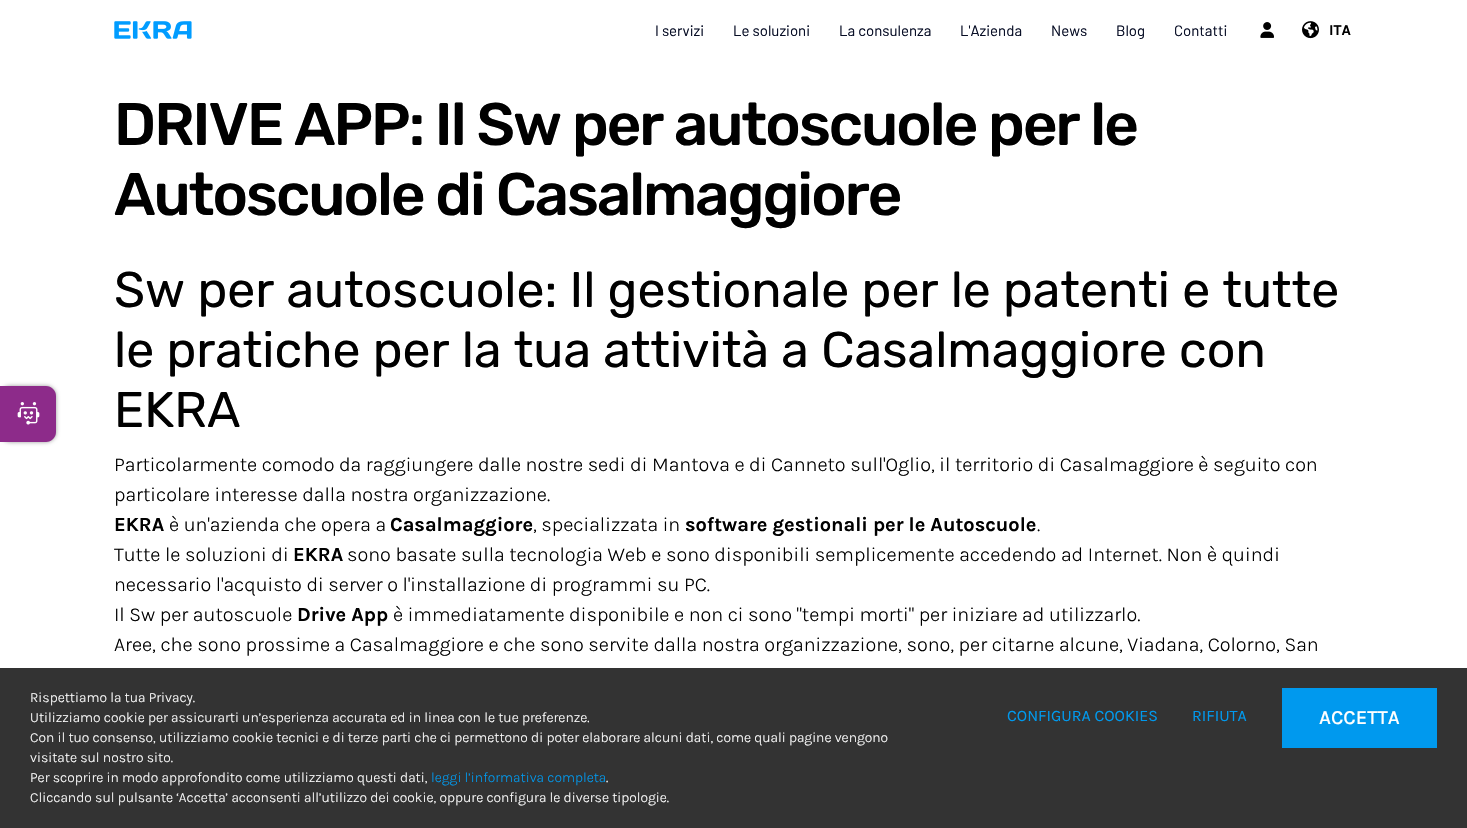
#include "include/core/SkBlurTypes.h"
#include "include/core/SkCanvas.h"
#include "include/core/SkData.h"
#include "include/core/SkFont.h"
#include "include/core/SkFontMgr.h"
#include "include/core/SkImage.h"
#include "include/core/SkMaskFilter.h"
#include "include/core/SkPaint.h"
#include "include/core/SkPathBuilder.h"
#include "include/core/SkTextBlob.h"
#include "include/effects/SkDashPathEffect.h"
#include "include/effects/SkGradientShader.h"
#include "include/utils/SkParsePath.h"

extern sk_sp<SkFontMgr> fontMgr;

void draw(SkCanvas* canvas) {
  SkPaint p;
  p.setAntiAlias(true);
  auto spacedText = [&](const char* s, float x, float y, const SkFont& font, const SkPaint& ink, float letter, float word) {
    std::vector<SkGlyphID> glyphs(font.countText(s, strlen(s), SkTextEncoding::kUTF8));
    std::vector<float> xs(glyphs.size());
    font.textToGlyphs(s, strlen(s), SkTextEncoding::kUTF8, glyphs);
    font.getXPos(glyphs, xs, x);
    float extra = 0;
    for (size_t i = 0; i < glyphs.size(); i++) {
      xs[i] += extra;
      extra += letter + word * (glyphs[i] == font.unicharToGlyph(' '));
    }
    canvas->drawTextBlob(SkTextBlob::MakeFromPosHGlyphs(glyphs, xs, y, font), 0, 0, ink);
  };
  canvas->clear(SK_ColorWHITE);
  canvas->drawImageRect(SkImages::DeferredFromEncodedData(SkData::MakeFromFileName("images/1.png")), SkRect::MakeLTRB(114, 21, 192, 39), SkSamplingOptions());
  canvas->drawImageRect(SkImages::DeferredFromEncodedData(SkData::MakeFromFileName("images/2.png")), SkRect::MakeLTRB(1260, 22, 1274, 38), SkSamplingOptions());
  canvas->drawImageRect(SkImages::DeferredFromEncodedData(SkData::MakeFromFileName("images/3.png")), SkRect::MakeLTRB(1302, 21, 1319, 39), SkSamplingOptions());
  p.setColor(SkColorSetARGB(102, 0, 0, 0));
  p.setMaskFilter(SkMaskFilter::MakeBlur(kNormal_SkBlurStyle, 2));
  canvas->drawRoundRect(SkRect::MakeLTRB(0, 386, 56, 442), 10, 10, p);
  p.setMaskFilter(nullptr);
  p.setColor(SkColorSetRGB(141, 43, 138));
  canvas->drawPath(SkPathBuilder().moveTo(0, 386).lineTo(46, 386).cubicTo(51.5f, 386, 56, 390.5f, 56, 396).lineTo(56, 432).cubicTo(56, 437.5f, 51.5f, 442, 46, 442).lineTo(0, 442).close().detach(), p);
  canvas->drawImageRect(SkImages::DeferredFromEncodedData(SkData::MakeFromFileName("images/4.png")), SkRect::MakeLTRB(17, 402, 40, 425), SkSamplingOptions());
  p.setColor(SkColorSetARGB(204, 0, 0, 0));
  canvas->drawRect(SkRect::MakeLTRB(0, 668, 1467, 828), p);
  p.setColor(SkColorSetRGB(0, 153, 238));
  canvas->drawRect(SkRect::MakeLTRB(1282, 688, 1437, 748), p);
  SkFont font1(fontMgr->matchFamilyStyle("Barlow", SkFontStyle::Normal()), 15);
  font1.setSubpixel(true);
  p.setColor(SkColorSetRGB(7, 13, 37));
  canvas->drawString("I servizi", 655, 36, font1, p);
  canvas->drawString("Le soluzioni", 733, 36, font1, p);
  canvas->drawString("La consulenza", 839, 36, font1, p);
  canvas->drawString("L'Azienda", 960, 36, font1, p);
  canvas->drawString("News", 1051, 36, font1, p);
  canvas->drawString("Blog", 1116, 36, font1, p);
  canvas->drawString("Contatti", 1174, 36, font1, p);
  SkFont font2(fontMgr->matchFamilyStyle("Karla", SkFontStyle::Bold()), 15);
  font2.setSubpixel(true);
  p.setColor(SK_ColorBLACK);
  canvas->drawString("ITA", 1329, 35, font2, p);
  SkFont font3(fontMgr->matchFamilyStyle("Rubik", SkFontStyle(500, SkFontStyle::kNormal_Width, SkFontStyle::kUpright_Slant)), 60);
  font3.setSubpixel(true);
  spacedText("DRIVE APP: Il Sw per autoscuole per le", 114, 145, font3, p, -2, 0);
  spacedText("Autoscuole di Casalmaggiore", 114, 215, font3, p, -2, 0);
  SkFont font4(fontMgr->matchFamilyStyle("Rubik", SkFontStyle::Normal()), 50);
  font4.setSubpixel(true);
  canvas->drawString("Sw per autoscuole: Il gestionale per le patenti e tutte", 114, 307, font4, p);
  canvas->drawString("le pratiche per la tua attività a Casalmaggiore con", 114, 367, font4, p);
  canvas->drawString("EKRA", 114, 427, font4, p);
  SkFont font5(fontMgr->matchFamilyStyle("Karla", SkFontStyle(300, SkFontStyle::kNormal_Width, SkFontStyle::kUpright_Slant)), 20);
  font5.setSubpixel(true);
  canvas->drawString("Particolarmente comodo da raggiungere dalle nostre sedi di Mantova e di Canneto sull'Oglio, il territorio di Casalmaggiore è seguito con", 114, 471, font5, p);
  canvas->drawString("particolare interesse dalla nostra organizzazione.", 114, 501, font5, p);
  SkFont font6(fontMgr->matchFamilyStyle("Karla", SkFontStyle::Bold()), 20);
  font6.setSubpixel(true);
  canvas->drawString("EKRA", 114, 531, font6, p);
  canvas->drawString("è un'azienda che opera a", 169, 531, font5, p);
  canvas->drawString("Casalmaggiore", 390, 531, font6, p);
  canvas->drawString(", specializzata in", 533, 531, font5, p);
  canvas->drawString("software gestionali per le Autoscuole", 685, 531, font6, p);
  canvas->drawString(".", 1037, 531, font5, p);
  canvas->drawString("Tutte le soluzioni di", 114, 561, font5, p);
  canvas->drawString("EKRA", 293, 561, font6, p);
  canvas->drawString("sono basate sulla tecnologia Web e sono disponibili semplicemente accedendo ad Internet. Non è quindi", 347, 561, font5, p);
  canvas->drawString("necessario l'acquisto di server o l'installazione di programmi su PC.", 114, 591, font5, p);
  canvas->drawString("Il Sw per autoscuole", 114, 621, font5, p);
  canvas->drawString("Drive App", 297, 621, font6, p);
  canvas->drawString("è immediatamente disponibile e non ci sono \"tempi morti\" per iniziare ad utilizzarlo.", 393, 621, font5, p);
  canvas->drawString("Aree, che sono prossime a Casalmaggiore e che sono servite dalla nostra organizzazione, sono, per citarne alcune, Viadana, Colorno, San", 114, 651, font5, p);
  SkFont font7(fontMgr->matchFamilyStyle("Karla", SkFontStyle(300, SkFontStyle::kNormal_Width, SkFontStyle::kUpright_Slant)), 14);
  font7.setSubpixel(true);
  p.setColor(SK_ColorWHITE);
  canvas->drawString("Rispettiamo la tua Privacy.", 30, 702, font7, p);
  canvas->drawString("Utilizziamo cookie per assicurarti un’esperienza accurata ed in linea con le tue preferenze.", 30, 722, font7, p);
  canvas->drawString("Con il tuo consenso, utilizziamo cookie tecnici e di terze parti che ci permettono di poter elaborare alcuni dati, come quali pagine vengono", 30, 742, font7, p);
  canvas->drawString("visitate sul nostro sito.", 30, 762, font7, p);
  canvas->drawString("Per scoprire in modo approfondito come utilizziamo questi dati,", 30, 782, font7, p);
  p.setColor(SkColorSetRGB(0, 153, 238));
  canvas->drawString("leggi l’informativa completa", 431, 782, font7, p);
  p.setColor(SK_ColorWHITE);
  canvas->drawString(".", 606, 782, font7, p);
  canvas->drawString("Cliccando sul pulsante ‘Accetta’ acconsenti all’utilizzo dei cookie, oppure configura le diverse tipologie.", 30, 802, font7, p);
  SkFont font8(fontMgr->matchFamilyStyle("Karla", SkFontStyle::Normal()), 16);
  font8.setSubpixel(true);
  p.setColor(SkColorSetRGB(0, 153, 238));
  canvas->drawString("CONFIGURA COOKIES", 1007, 721, font8, p);
  canvas->drawString("RIFIUTA", 1192, 721, font8, p);
  SkFont font9(fontMgr->matchFamilyStyle("Karla", SkFontStyle(500, SkFontStyle::kNormal_Width, SkFontStyle::kUpright_Slant)), 20);
  font9.setSubpixel(true);
  p.setColor(SK_ColorWHITE);
  canvas->drawString("ACCETTA", 1319, 724, font9, p);
}
